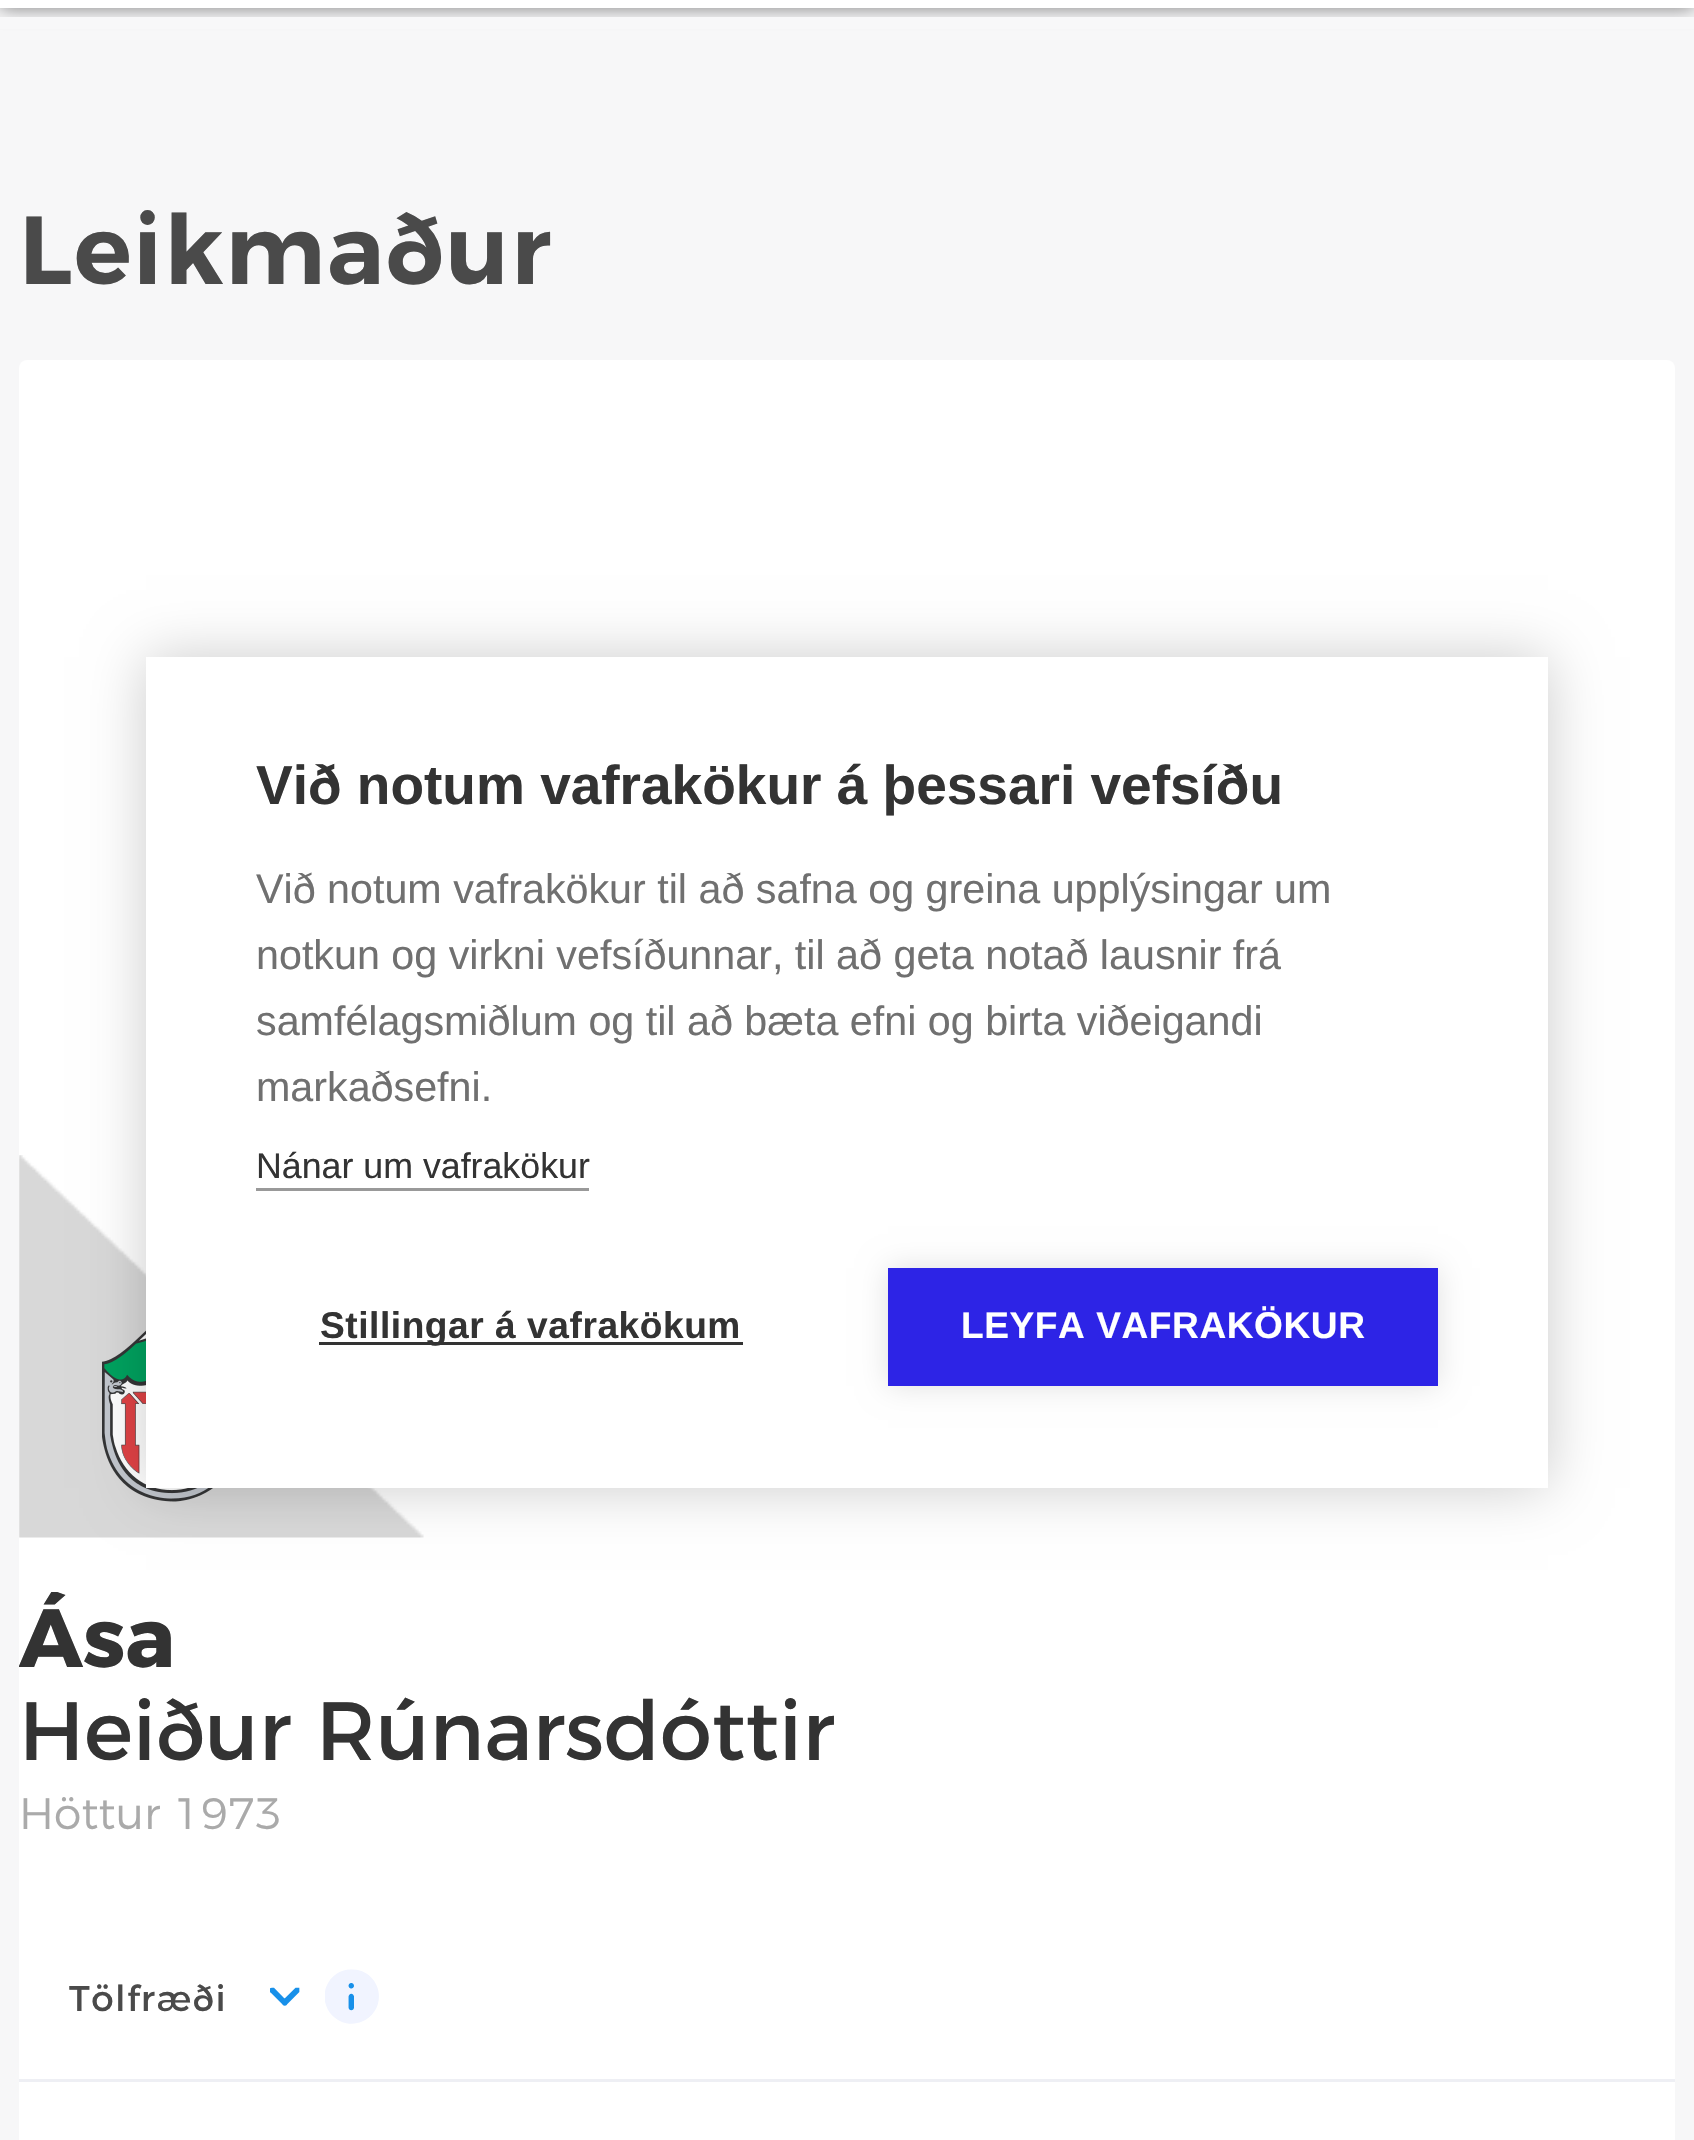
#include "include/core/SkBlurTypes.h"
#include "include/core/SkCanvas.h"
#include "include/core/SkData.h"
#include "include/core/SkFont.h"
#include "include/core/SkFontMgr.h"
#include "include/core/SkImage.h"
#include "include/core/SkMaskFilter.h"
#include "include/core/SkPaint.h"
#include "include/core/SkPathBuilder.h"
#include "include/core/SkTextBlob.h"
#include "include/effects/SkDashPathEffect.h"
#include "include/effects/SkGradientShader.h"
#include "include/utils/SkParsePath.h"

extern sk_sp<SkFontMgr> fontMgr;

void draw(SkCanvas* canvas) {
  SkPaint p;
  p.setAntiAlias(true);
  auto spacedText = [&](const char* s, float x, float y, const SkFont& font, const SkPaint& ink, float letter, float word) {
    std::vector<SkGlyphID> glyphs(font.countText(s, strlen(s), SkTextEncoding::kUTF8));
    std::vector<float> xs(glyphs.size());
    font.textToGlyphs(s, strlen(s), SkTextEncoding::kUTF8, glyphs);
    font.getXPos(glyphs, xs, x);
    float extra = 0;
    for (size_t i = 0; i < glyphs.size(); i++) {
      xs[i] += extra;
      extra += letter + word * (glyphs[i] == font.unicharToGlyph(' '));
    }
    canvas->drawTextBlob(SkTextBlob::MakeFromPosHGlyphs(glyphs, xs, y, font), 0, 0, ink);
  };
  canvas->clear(SkColorSetRGB(247, 247, 248));
  p.setColor(SkColorSetARGB(128, 0, 0, 0));
  p.setMaskFilter(SkMaskFilter::MakeBlur(kNormal_SkBlurStyle, 9.5f));
  canvas->drawRect(SkRect::MakeLTRB(0, -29, 1694, 8), p);
  p.setMaskFilter(nullptr);
  p.setColor(SK_ColorWHITE);
  canvas->drawRect(SkRect::MakeLTRB(0, 0, 1694, 8), p);
  p.setColor(SkColorSetRGB(248, 248, 249));
  canvas->drawRect(SkRect::MakeLTRB(0, 17, 1694, 29), p);
  p.setColor(SK_ColorWHITE);
  canvas->drawRoundRect(SkRect::MakeLTRB(19, 360, 1675, 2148), 8, 8, p);
  canvas->drawImageRect(SkImages::DeferredFromEncodedData(SkData::MakeFromFileName("images/1.png")), SkRect::MakeLTRB(19, 1155, 424, 1538), SkSamplingOptions());
  canvas->drawImageRect(SkImages::DeferredFromEncodedData(SkData::MakeFromFileName("images/2.png")), SkRect::MakeLTRB(102, 1330, 213, 1502), SkSamplingOptions());
  p.setColor(SkColorSetRGB(238, 239, 244));
  canvas->drawRect(SkRect::MakeLTRB(19, 2079, 1675, 2082), p);
  canvas->save();
  canvas->clipRect(SkRect::MakeLTRB(270, 1986, 300, 2008));
  p.setStyle(SkPaint::kStroke_Style);
  p.setStrokeWidth(4.7f);
  p.setColor(SkColorSetRGB(24, 144, 233));
  canvas->drawPath(SkPathBuilder().moveTo(272, 1990).lineTo(273, 1990).lineTo(284.5f, 2002).lineTo(296.5f, 1990).cubicTo(296.5f, 1990, 296.5f, 1990, 297, 1990).cubicTo(297, 1990, 297, 1990.5f, 297, 1991).lineTo(285, 2003).cubicTo(285, 2003.5f, 284.5f, 2003.5f, 284.5f, 2003).lineTo(272, 1990.5f).cubicTo(271.5f, 1990.5f, 271.5f, 1990, 272, 1990).close().detach(), p);
  canvas->restore();
  canvas->drawImageRect(SkImages::DeferredFromEncodedData(SkData::MakeFromFileName("images/3.png")), SkRect::MakeLTRB(325, 1969, 379, 2024), SkSamplingOptions());
  p.setStyle(SkPaint::kFill_Style);
  p.setColor(SkColorSetARGB(51, 0, 0, 0));
  p.setMaskFilter(SkMaskFilter::MakeBlur(kNormal_SkBlurStyle, 27.5f));
  canvas->drawRect(SkRect::MakeLTRB(146, 657, 1548, 1488), p);
  p.setMaskFilter(nullptr);
  p.setColor(SK_ColorWHITE);
  canvas->drawRect(SkRect::MakeLTRB(146, 657, 1548, 1488), p);
  p.setColor(SkColorSetRGB(153, 153, 153));
  canvas->drawRect(SkRect::MakeLTRB(256, 1188, 589, 1191), p);
  p.setColor(SkColorSetRGB(51, 51, 51));
  canvas->drawRect(SkRect::MakeLTRB(319, 1342, 743, 1345), p);
  p.setColor(SkColorSetARGB(31, 0, 0, 0));
  p.setMaskFilter(SkMaskFilter::MakeBlur(kNormal_SkBlurStyle, 14));
  canvas->drawRect(SkRect::MakeLTRB(888, 1268, 1438, 1386), p);
  p.setMaskFilter(nullptr);
  p.setColor(SkColorSetRGB(45, 36, 230));
  canvas->drawRect(SkRect::MakeLTRB(888, 1268, 1438, 1386), p);
  SkFont font1(fontMgr->matchFamilyStyle("Montserrat", SkFontStyle(600, SkFontStyle::kNormal_Width, SkFontStyle::kUpright_Slant)), 96.25f);
  font1.setSubpixel(true);
  p.setColor(SkColorSetRGB(74, 74, 74));
  spacedText("Leikmaður", 19, 284, font1, p, 1.75f, 0);
  canvas->save();
  canvas->clipRect(SkRect::MakeLTRB(19, 1592, 1675, 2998));
  SkFont font2(fontMgr->matchFamilyStyle("Montserrat", SkFontStyle::Bold()), 82.5f);
  font2.setSubpixel(true);
  p.setColor(SkColorSetRGB(51, 51, 51));
  canvas->drawString("Ása", 19, 1667, font2, p);
  canvas->restore();
  SkFont font3(fontMgr->matchFamilyStyle("Montserrat", SkFontStyle::Normal()), 82.5f);
  font3.setSubpixel(true);
  canvas->drawString("Heiður Rúnarsdóttir", 19, 1760, font3, p);
  SkFont font4(fontMgr->matchFamilyStyle("Montserrat", SkFontStyle(300, SkFontStyle::kNormal_Width, SkFontStyle::kUpright_Slant)), 44);
  font4.setSubpixel(true);
  p.setColor(SkColorSetRGB(170, 170, 170));
  canvas->drawString("Höttur 1973", 19, 1829, font4, p);
  SkFont font5(fontMgr->matchFamilyStyle("Montserrat", SkFontStyle::Normal()), 35.75f);
  font5.setSubpixel(true);
  p.setColor(SkColorSetRGB(74, 74, 74));
  spacedText("Tölfræði", 69, 2011, font5, p, 1.5f, 0);
  SkFont font6(fontMgr->matchFamilyStyle("Liberation Sans", SkFontStyle::Bold()), 55);
  font6.setSubpixel(true);
  p.setColor(SkColorSetRGB(51, 51, 51));
  canvas->drawString("Við notum vafrakökur á þessari vefsíðu", 256, 804, font6, p);
  SkFont font7(fontMgr->matchFamilyStyle("Liberation Sans", SkFontStyle::Normal()), 41.25f);
  font7.setSubpixel(true);
  p.setColor(SkColorSetRGB(112, 112, 112));
  canvas->drawString("Við notum vafrakökur til að safna og greina upplýsingar um", 256, 903, font7, p);
  canvas->drawString("notkun og virkni vefsíðunnar, til að geta notað lausnir frá", 256, 969, font7, p);
  canvas->drawString("samfélagsmiðlum og til að bæta efni og birta viðeigandi", 256, 1035, font7, p);
  canvas->drawString("markaðsefni.", 256, 1101, font7, p);
  SkFont font8(fontMgr->matchFamilyStyle("Liberation Sans", SkFontStyle::Normal()), 35.75f);
  font8.setSubpixel(true);
  p.setColor(SkColorSetRGB(51, 51, 51));
  canvas->drawString("Nánar um vafrakökur", 256, 1178, font8, p);
  SkFont font9(fontMgr->matchFamilyStyle("Liberation Sans", SkFontStyle::Bold()), 37.1f);
  font9.setSubpixel(true);
  spacedText("Stillingar á vafrakökum", 320, 1338, font9, p, 0.55f, 0);
  p.setColor(SK_ColorWHITE);
  spacedText("LEYFA VAFRAKÖKUR", 961, 1338, font9, p, 0.55f, 0);
}
